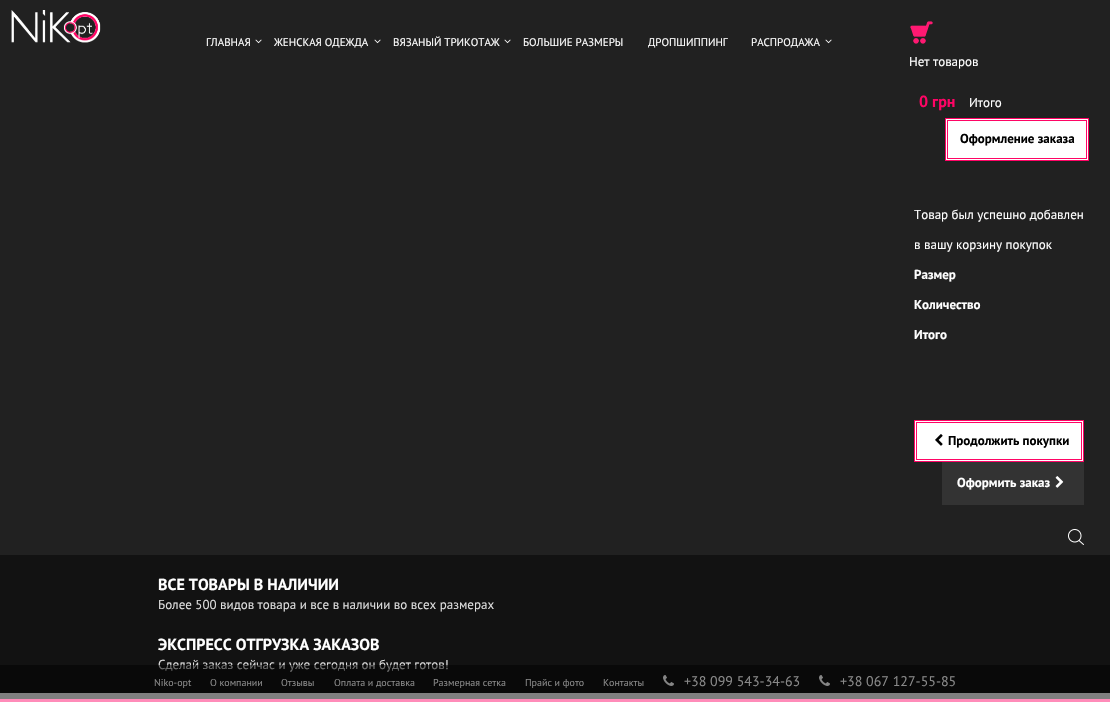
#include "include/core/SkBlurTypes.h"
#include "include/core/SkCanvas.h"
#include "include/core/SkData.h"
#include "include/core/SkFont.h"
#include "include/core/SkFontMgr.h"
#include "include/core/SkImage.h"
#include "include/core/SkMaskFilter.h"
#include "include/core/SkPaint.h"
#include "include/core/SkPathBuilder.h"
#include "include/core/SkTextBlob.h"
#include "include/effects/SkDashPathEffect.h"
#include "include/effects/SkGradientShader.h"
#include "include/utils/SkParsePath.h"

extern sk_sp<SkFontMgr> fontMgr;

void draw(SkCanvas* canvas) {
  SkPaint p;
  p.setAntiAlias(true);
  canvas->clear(SK_ColorWHITE);
  p.setColor(SkColorSetRGB(33, 33, 33));
  canvas->drawRect(SkRect::MakeLTRB(0, 0, 1110, 555), p);
  canvas->drawImageRect(SkImages::DeferredFromEncodedData(SkData::MakeFromFileName("images/1.png")), SkRect::MakeLTRB(11, 10, 101, 43), SkSamplingOptions());
  canvas->drawImageRect(SkImages::DeferredFromEncodedData(SkData::MakeFromFileName("images/2.png")), SkRect::MakeLTRB(255, 39, 262, 44), SkSamplingOptions());
  canvas->drawImageRect(SkImages::DeferredFromEncodedData(SkData::MakeFromFileName("images/2.png")), SkRect::MakeLTRB(374, 39, 381, 44), SkSamplingOptions());
  canvas->drawImageRect(SkImages::DeferredFromEncodedData(SkData::MakeFromFileName("images/2.png")), SkRect::MakeLTRB(504, 39, 511, 44), SkSamplingOptions());
  canvas->drawImageRect(SkImages::DeferredFromEncodedData(SkData::MakeFromFileName("images/2.png")), SkRect::MakeLTRB(825, 39, 832, 44), SkSamplingOptions());
  canvas->drawImageRect(SkImages::DeferredFromEncodedData(SkData::MakeFromFileName("images/3.png")), SkRect::MakeLTRB(910, 21, 933, 44), SkSamplingOptions());
  p.setColor(SK_ColorWHITE);
  canvas->drawRect(SkRect::MakeLTRB(945.5f, 118.5f, 1088.5f, 160.5f), p);
  p.setStyle(SkPaint::kStroke_Style);
  p.setStrokeWidth(1);
  p.setColor(SkColorSetRGB(255, 4, 101));
  canvas->drawRect(SkRect::MakeLTRB(945.5f, 118.5f, 1088.5f, 160.5f), p);
  canvas->drawRect(SkRect::MakeLTRB(947.5f, 120.5f, 1086.5f, 158.5f), p);
  p.setStyle(SkPaint::kFill_Style);
  p.setColor(SK_ColorWHITE);
  canvas->drawRect(SkRect::MakeLTRB(914.5f, 420.5f, 1083.5f, 461.5f), p);
  p.setStyle(SkPaint::kStroke_Style);
  p.setColor(SkColorSetRGB(255, 4, 101));
  canvas->drawRect(SkRect::MakeLTRB(914.5f, 420.5f, 1083.5f, 461.5f), p);
  canvas->drawRect(SkRect::MakeLTRB(916.5f, 422.5f, 1081.5f, 459.5f), p);
  canvas->drawImageRect(SkImages::DeferredFromEncodedData(SkData::MakeFromFileName("images/4.png")), SkRect::MakeLTRB(935, 434, 943, 446), SkSamplingOptions());
  p.setStyle(SkPaint::kFill_Style);
  p.setColor(SkColorSetRGB(51, 51, 51));
  canvas->drawRect(SkRect::MakeLTRB(942, 462, 1084, 505), p);
  canvas->drawImageRect(SkImages::DeferredFromEncodedData(SkData::MakeFromFileName("images/5.png")), SkRect::MakeLTRB(1055, 476, 1064, 488), SkSamplingOptions());
  canvas->drawImageRect(SkImages::DeferredFromEncodedData(SkData::MakeFromFileName("images/6.png")), SkRect::MakeLTRB(1068, 529, 1084, 545), SkSamplingOptions());
  p.setColor(SkColorSetRGB(18, 18, 18));
  canvas->drawRect(SkRect::MakeLTRB(0, 555, 1110, 693), p);
  p.setColor(SkColorSetRGB(255, 140, 185));
  canvas->drawRect(SkRect::MakeLTRB(0, 699, 1110, 702), p);
  SkFont font1(fontMgr->matchFamilyStyle("PT Sans", SkFontStyle::Normal()), 11);
  font1.setSubpixel(true);
  p.setColor(SK_ColorWHITE);
  canvas->drawString("ГЛАВНАЯ", 206, 46, font1, p);
  canvas->drawString("ЖЕНСКАЯ ОДЕЖДА", 274, 46, font1, p);
  canvas->drawString("ВЯЗАНЫЙ ТРИКОТАЖ", 393, 46, font1, p);
  canvas->drawString("БОЛЬШИЕ РАЗМЕРЫ", 523, 46, font1, p);
  canvas->drawString("ДРОПШИППИНГ", 648, 46, font1, p);
  canvas->drawString("РАСПРОДАЖА", 751, 46, font1, p);
  SkFont font2(fontMgr->matchFamilyStyle("PT Sans", SkFontStyle::Normal()), 13);
  font2.setSubpixel(true);
  canvas->drawString("Нет товаров", 909, 66, font2, p);
  SkFont font3(fontMgr->matchFamilyStyle("PT Sans", SkFontStyle::Bold()), 16);
  font3.setSubpixel(true);
  p.setColor(SkColorSetRGB(255, 4, 101));
  canvas->drawString("0 грн", 919, 107, font3, p);
  p.setColor(SK_ColorWHITE);
  canvas->drawString("Итого", 969, 107, font2, p);
  SkFont font4(fontMgr->matchFamilyStyle("PT Sans", SkFontStyle::Bold()), 13);
  font4.setSubpixel(true);
  p.setColor(SK_ColorBLACK);
  canvas->drawString("Оформление заказа", 960, 143, font4, p);
  p.setColor(SK_ColorWHITE);
  canvas->drawString("Товар был успешно добавлен", 914, 219, font2, p);
  canvas->drawString("в вашу корзину покупок", 914, 249, font2, p);
  canvas->drawString("Размер", 914, 279, font4, p);
  canvas->drawString("Количество", 914, 309, font4, p);
  canvas->drawString("Итого", 914, 339, font4, p);
  p.setColor(SK_ColorBLACK);
  canvas->drawString("Продолжить покупки", 948, 445, font4, p);
  p.setColor(SK_ColorWHITE);
  canvas->drawString("Оформить заказ", 957, 487, font4, p);
  canvas->drawString("ВСЕ ТОВАРЫ В НАЛИЧИИ", 158, 590, font3, p);
  p.setColor(SkColorSetRGB(221, 221, 221));
  canvas->drawString("Более 500 видов товара и все в наличии во всех размерах", 158, 609, font2, p);
  p.setColor(SK_ColorWHITE);
  canvas->drawString("ЭКСПРЕСС ОТГРУЗКА ЗАКАЗОВ", 158, 650, font3, p);
  p.setColor(SkColorSetRGB(221, 221, 221));
  canvas->drawString("Сделай заказ сейчас и уже сегодня он будет готов!", 158, 669, font2, p);
  p.setColor(SkColorSetARGB(128, 0, 0, 0));
  canvas->drawRect(SkRect::MakeLTRB(0, 665, 1110, 699), p);
  SkFont font5(fontMgr->matchFamilyStyle("PT Sans", SkFontStyle::Normal()), 10);
  font5.setSubpixel(true);
  p.setColor(SkColorSetRGB(137, 137, 137));
  canvas->drawString("Niko-opt", 154, 686, font5, p);
  canvas->drawString("О компании", 210, 686, font5, p);
  canvas->drawString("Отзывы", 281, 686, font5, p);
  canvas->drawString("Оплата и доставка", 334, 686, font5, p);
  canvas->drawString("Размерная сетка", 433, 686, font5, p);
  canvas->drawString("Прайс и фото", 525, 686, font5, p);
  canvas->drawString("Контакты", 603, 686, font5, p);
  canvas->drawImageRect(SkImages::DeferredFromEncodedData(SkData::MakeFromFileName("images/7.png")), SkRect::MakeLTRB(663, 675, 674, 686), SkSamplingOptions());
  SkFont font6(fontMgr->matchFamilyStyle("PT Sans", SkFontStyle::Normal()), 14);
  font6.setSubpixel(true);
  canvas->drawString("+38 099 543-34-63", 684, 686, font6, p);
  canvas->drawImageRect(SkImages::DeferredFromEncodedData(SkData::MakeFromFileName("images/7.png")), SkRect::MakeLTRB(819, 675, 830, 686), SkSamplingOptions());
  canvas->drawString("+38 067 127-55-85", 840, 686, font6, p);
}
